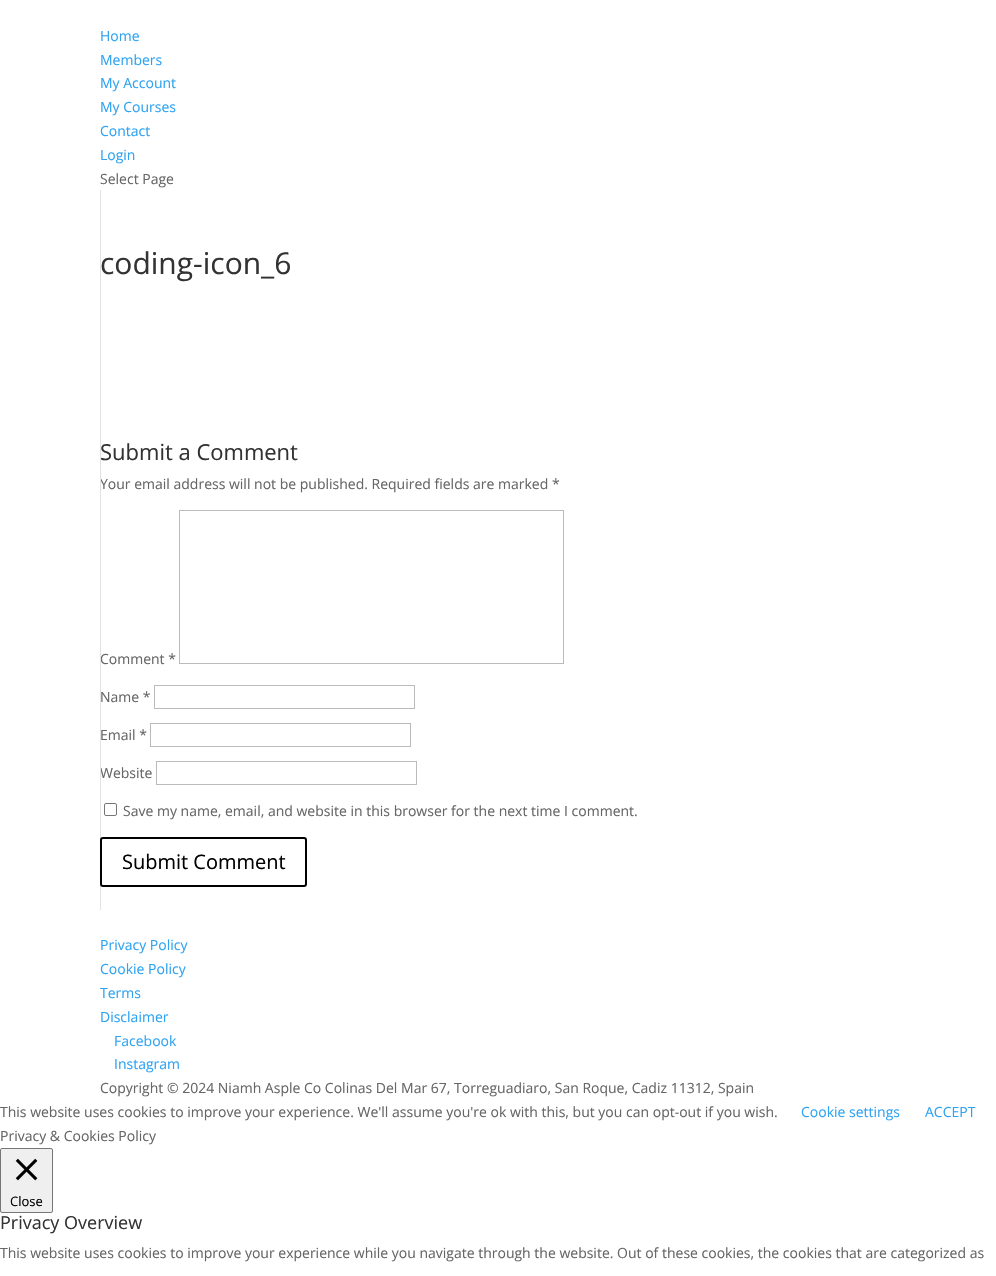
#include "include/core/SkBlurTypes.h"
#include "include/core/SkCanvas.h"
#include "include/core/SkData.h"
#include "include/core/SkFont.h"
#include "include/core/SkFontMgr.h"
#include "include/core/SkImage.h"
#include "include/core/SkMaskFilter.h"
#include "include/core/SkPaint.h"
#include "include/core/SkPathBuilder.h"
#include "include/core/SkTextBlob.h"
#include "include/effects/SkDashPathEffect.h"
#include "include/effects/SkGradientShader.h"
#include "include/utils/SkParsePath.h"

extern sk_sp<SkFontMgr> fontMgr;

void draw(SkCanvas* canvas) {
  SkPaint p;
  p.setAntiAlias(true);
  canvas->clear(SK_ColorWHITE);
  p.setStyle(SkPaint::kStroke_Style);
  p.setStrokeWidth(1);
  p.setColor(SkColorSetRGB(187, 187, 187));
  canvas->drawRect(SkRect::MakeLTRB(179.5f, 510.5f, 563.5f, 663.5f), p);
  canvas->drawRect(SkRect::MakeLTRB(154.5f, 685.5f, 414.5f, 708.5f), p);
  canvas->drawRect(SkRect::MakeLTRB(150.5f, 723.5f, 410.5f, 746.5f), p);
  canvas->drawRect(SkRect::MakeLTRB(156.5f, 761.5f, 416.5f, 784.5f), p);
  p.setColor(SkColorSetRGB(118, 118, 118));
  canvas->drawRoundRect(SkRect::MakeLTRB(104.5f, 803.5f, 116.5f, 815.5f), 1.5f, 1.5f, p);
  p.setStyle(SkPaint::kFill_Style);
  p.setColor(SkColorSetRGB(239, 239, 239));
  canvas->drawRoundRect(SkRect::MakeLTRB(0.5f, 1148.5f, 52.5f, 1212.5f), 1.5f, 1.5f, p);
  p.setStyle(SkPaint::kStroke_Style);
  p.setColor(SkColorSetRGB(118, 118, 118));
  canvas->drawRoundRect(SkRect::MakeLTRB(0.5f, 1148.5f, 52.5f, 1212.5f), 1.5f, 1.5f, p);
  canvas->drawImageRect(SkImages::DeferredFromEncodedData(SkData::MakeFromFileName("images/1.png")), SkRect::MakeLTRB(15, 1158, 38, 1181), SkSamplingOptions());
  SkFont font1(fontMgr->matchFamilyStyle("Open Sans", SkFontStyle::Normal()), 14);
  font1.setSubpixel(true);
  p.setStyle(SkPaint::kFill_Style);
  p.setColor(SkColorSetRGB(46, 163, 242));
  canvas->drawString("Home", 100, 41, font1, p);
  canvas->drawString("Members", 100, 65, font1, p);
  canvas->drawString("My Account", 100, 88, font1, p);
  canvas->drawString("My Courses", 100, 112, font1, p);
  canvas->drawString("Contact", 100, 136, font1, p);
  canvas->drawString("Login", 100, 160, font1, p);
  p.setColor(SkColorSetRGB(102, 102, 102));
  canvas->drawString("Select Page", 100, 184, font1, p);
  SkFont font2(fontMgr->matchFamilyStyle("Open Sans", SkFontStyle::Normal()), 30);
  font2.setSubpixel(true);
  p.setColor(SkColorSetRGB(51, 51, 51));
  canvas->drawString("coding-icon_6", 100, 274, font2, p);
  SkFont font3(fontMgr->matchFamilyStyle("Open Sans", SkFontStyle::Normal()), 22);
  font3.setSubpixel(true);
  canvas->drawString("Submit a Comment", 100, 460, font3, p);
  p.setColor(SkColorSetRGB(102, 102, 102));
  canvas->drawString("Your email address will not be published. Required fields are marked *", 100, 489, font1, p);
  canvas->drawString("Comment *", 100, 664, font1, p);
  canvas->drawString("Name *", 100, 702, font1, p);
  canvas->drawString("Email *", 100, 740, font1, p);
  canvas->drawString("Website", 100, 778, font1, p);
  p.setColor(SkColorSetRGB(226, 226, 226));
  canvas->drawRect(SkRect::MakeLTRB(100, 190, 101, 910), p);
  p.setColor(SkColorSetRGB(102, 102, 102));
  canvas->drawString("Save my name, email, and website in this browser for the next time I comment.", 123, 816, font1, p);
  p.setStyle(SkPaint::kStroke_Style);
  p.setStrokeWidth(2);
  p.setColor(SK_ColorBLACK);
  canvas->drawRoundRect(SkRect::MakeLTRB(101, 838, 306, 886), 2, 2, p);
  SkFont font4(fontMgr->matchFamilyStyle("Open Sans", SkFontStyle::Normal()), 20);
  font4.setSubpixel(true);
  p.setStyle(SkPaint::kFill_Style);
  canvas->drawString("Submit Comment", 122, 869, font4, p);
  p.setColor(SkColorSetRGB(46, 163, 242));
  canvas->drawString("Privacy Policy", 100, 950, font1, p);
  canvas->drawString("Cookie Policy", 100, 974, font1, p);
  canvas->drawString("Terms", 100, 998, font1, p);
  canvas->drawString("Disclaimer", 100, 1022, font1, p);
  canvas->drawString("Facebook", 114, 1046, font1, p);
  canvas->drawString("Instagram", 114, 1069, font1, p);
  p.setColor(SkColorSetRGB(102, 102, 102));
  canvas->drawString("Copyright © 2024 Niamh Asple Co Colinas Del Mar 67, Torreguadiaro, San Roque, Cadiz 11312, Spain", 100, 1093, font1, p);
  canvas->drawString("This website uses cookies to improve your experience. We'll assume you're ok with this, but you can opt-out if you wish.", 0, 1117, font1, p);
  p.setColor(SkColorSetRGB(46, 163, 242));
  canvas->drawString("Cookie settings", 801, 1117, font1, p);
  canvas->drawString("ACCEPT", 925, 1117, font1, p);
  p.setColor(SkColorSetRGB(102, 102, 102));
  canvas->drawString("Privacy & Cookies Policy", 0, 1141, font1, p);
  SkFont font5(fontMgr->matchFamilyStyle("Open Sans", SkFontStyle::Normal()), 13);
  font5.setSubpixel(true);
  p.setColor(SK_ColorBLACK);
  canvas->drawString("Close", 10, 1206, font5, p);
  SkFont font6(fontMgr->matchFamilyStyle("Open Sans", SkFontStyle::Normal()), 18);
  font6.setSubpixel(true);
  p.setColor(SkColorSetRGB(51, 51, 51));
  canvas->drawString("Privacy Overview", 0, 1229, font6, p);
  p.setColor(SkColorSetRGB(102, 102, 102));
  canvas->drawString("This website uses cookies to improve your experience while you navigate through the website. Out of these cookies, the cookies that are categorized as", 0, 1258, font1, p);
}
